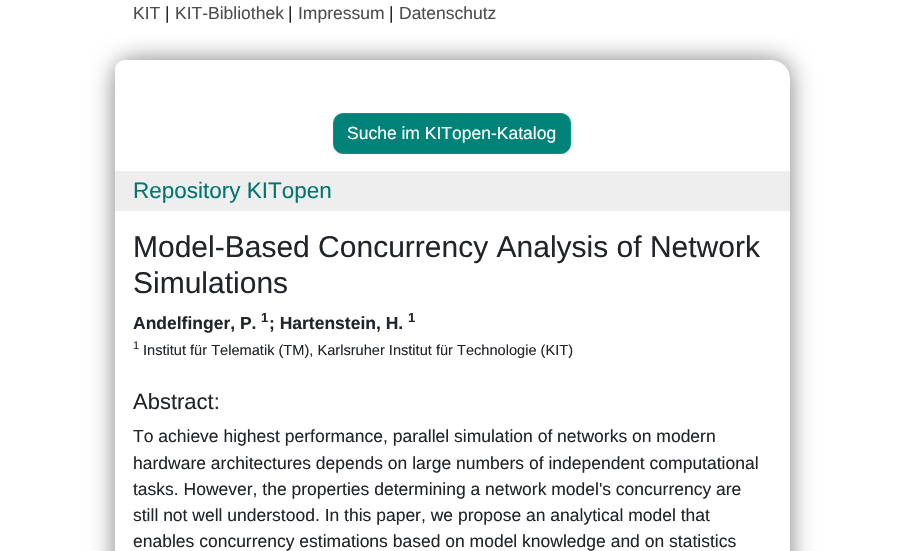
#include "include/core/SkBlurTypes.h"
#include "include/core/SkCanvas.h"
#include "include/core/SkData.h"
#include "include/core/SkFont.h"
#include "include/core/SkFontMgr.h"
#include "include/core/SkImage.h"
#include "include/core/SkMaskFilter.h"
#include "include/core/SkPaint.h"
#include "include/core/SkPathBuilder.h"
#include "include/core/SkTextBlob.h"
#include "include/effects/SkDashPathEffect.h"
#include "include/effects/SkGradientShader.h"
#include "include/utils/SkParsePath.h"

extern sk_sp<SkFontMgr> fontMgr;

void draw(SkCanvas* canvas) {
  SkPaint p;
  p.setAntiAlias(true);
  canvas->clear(SK_ColorWHITE);
  canvas->save();
  canvas->clipPath(SkPathBuilder(SkPathFillType::kEvenOdd).moveTo(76, 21).lineTo(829, 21).lineTo(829, 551).lineTo(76, 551).close().moveTo(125, 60).lineTo(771, 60).cubicTo(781.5f, 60, 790, 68.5f, 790, 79).lineTo(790, 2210).cubicTo(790, 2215.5f, 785.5f, 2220, 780, 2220).lineTo(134, 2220).cubicTo(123.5f, 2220, 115, 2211.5f, 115, 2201).lineTo(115, 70).cubicTo(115, 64.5f, 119.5f, 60, 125, 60).close().detach(), true);
  p.setColor(SkColorSetRGB(128, 128, 128));
  p.setMaskFilter(SkMaskFilter::MakeBlur(kNormal_SkBlurStyle, 12.5f));
  canvas->drawRoundRect(SkRect::MakeLTRB(115, 60, 790, 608), 19, 19, p);
  p.setMaskFilter(nullptr);
  canvas->restore();
  p.setColor(SkColorSetRGB(0, 130, 120));
  canvas->drawRoundRect(SkRect::MakeLTRB(333.5f, 113.5f, 570.5f, 153.5f), 9.5f, 9.5f, p);
  p.setStyle(SkPaint::kStroke_Style);
  p.setStrokeWidth(1);
  p.setColor(SkColorSetRGB(0, 150, 130));
  canvas->drawRoundRect(SkRect::MakeLTRB(333.5f, 113.5f, 570.5f, 153.5f), 9.5f, 9.5f, p);
  p.setStyle(SkPaint::kFill_Style);
  p.setColor(SkColorSetRGB(238, 238, 238));
  canvas->drawRect(SkRect::MakeLTRB(115, 171, 790, 211), p);
  SkFont font1(fontMgr->matchFamilyStyle("Liberation Sans", SkFontStyle::Normal()), 17.5f);
  font1.setSubpixel(true);
  p.setColor(SkColorSetRGB(77, 77, 77));
  canvas->drawString("KIT", 133, 19, font1, p);
  p.setColor(SkColorSetRGB(33, 37, 41));
  canvas->drawString("|", 165, 19, font1, p);
  p.setColor(SkColorSetRGB(77, 77, 77));
  canvas->drawString("KIT-Bibliothek", 175, 19, font1, p);
  p.setColor(SkColorSetRGB(33, 37, 41));
  canvas->drawString("|", 288, 19, font1, p);
  p.setColor(SkColorSetRGB(77, 77, 77));
  canvas->drawString("Impressum", 298, 19, font1, p);
  p.setColor(SkColorSetRGB(33, 37, 41));
  canvas->drawString("|", 389, 19, font1, p);
  p.setColor(SkColorSetRGB(77, 77, 77));
  canvas->drawString("Datenschutz", 399, 19, font1, p);
  p.setColor(SK_ColorWHITE);
  canvas->drawString("Suche im KITopen-Katalog", 347, 139, font1, p);
  SkFont font2(fontMgr->matchFamilyStyle("Liberation Sans", SkFontStyle::Normal()), 22.5f);
  font2.setSubpixel(true);
  p.setColor(SkColorSetRGB(0, 117, 112));
  canvas->drawString("Repository KITopen", 133, 198, font2, p);
  SkFont font3(fontMgr->matchFamilyStyle("Liberation Sans", SkFontStyle::Normal()), 30);
  font3.setSubpixel(true);
  p.setColor(SkColorSetRGB(33, 37, 41));
  canvas->drawString("Model-Based Concurrency Analysis of Network", 133, 257, font3, p);
  canvas->drawString("Simulations", 133, 293, font3, p);
  SkFont font4(fontMgr->matchFamilyStyle("Liberation Sans", SkFontStyle::Bold()), 17.5f);
  font4.setSubpixel(true);
  canvas->drawString("Andelfinger, P.", 133, 329, font4, p);
  SkFont font5(fontMgr->matchFamilyStyle("Liberation Sans", SkFontStyle::Bold()), 13);
  font5.setSubpixel(true);
  canvas->drawString("1", 261, 322, font5, p);
  canvas->drawString("; Hartenstein, H.", 269, 329, font4, p);
  canvas->drawString("1", 408, 322, font5, p);
  SkFont font6(fontMgr->matchFamilyStyle("Liberation Sans", SkFontStyle::Normal()), 11);
  font6.setSubpixel(true);
  canvas->drawString("1", 133, 349, font6, p);
  SkFont font7(fontMgr->matchFamilyStyle("Liberation Sans", SkFontStyle::Normal()), 14.6f);
  font7.setSubpixel(true);
  canvas->drawString("Institut für Telematik (TM), Karlsruher Institut für Technologie (KIT)", 143, 355, font7, p);
  SkFont font8(fontMgr->matchFamilyStyle("Liberation Sans", SkFontStyle::Normal()), 22);
  font8.setSubpixel(true);
  canvas->drawString("Abstract:", 133, 409, font8, p);
  canvas->drawString("To achieve highest performance, parallel simulation of networks on modern", 133, 442, font1, p);
  canvas->drawString("hardware architectures depends on large numbers of independent computational", 133, 469, font1, p);
  canvas->drawString("tasks. However, the properties determining a network model's concurrency are", 133, 495, font1, p);
  canvas->drawString("still not well understood. In this paper, we propose an analytical model that", 133, 521, font1, p);
  canvas->drawString("enables concurrency estimations based on model knowledge and on statistics", 133, 547, font1, p);
}
